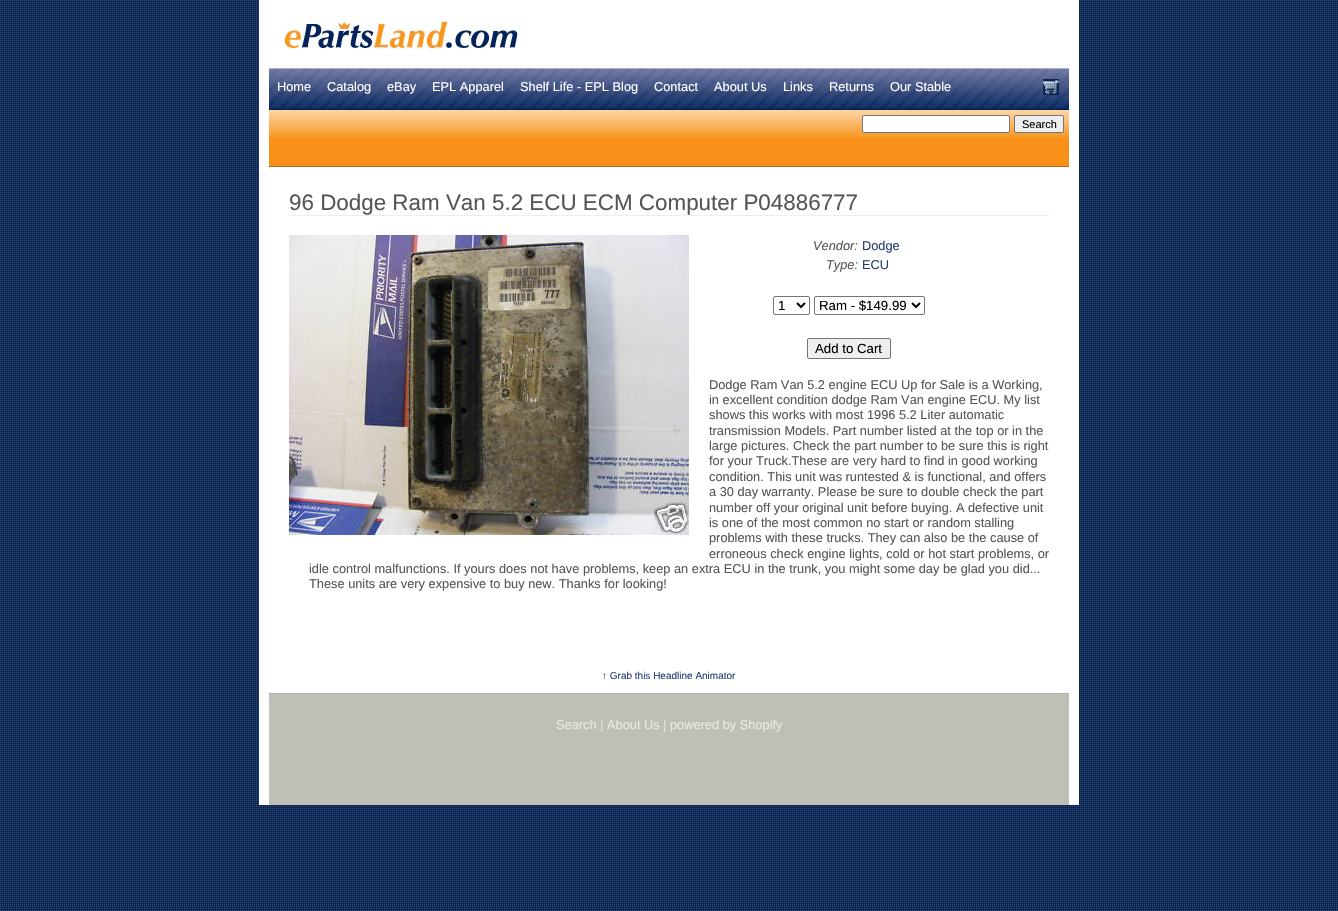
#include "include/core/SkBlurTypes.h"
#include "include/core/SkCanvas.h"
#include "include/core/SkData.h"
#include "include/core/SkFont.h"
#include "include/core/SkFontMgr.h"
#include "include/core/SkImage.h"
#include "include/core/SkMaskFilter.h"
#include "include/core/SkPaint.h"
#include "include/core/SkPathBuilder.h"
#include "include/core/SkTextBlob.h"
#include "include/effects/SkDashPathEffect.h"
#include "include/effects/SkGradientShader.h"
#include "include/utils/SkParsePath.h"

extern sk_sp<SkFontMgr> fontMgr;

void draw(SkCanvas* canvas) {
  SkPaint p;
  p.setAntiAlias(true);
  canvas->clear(SK_ColorWHITE);
  canvas->drawImageRect(SkImages::DeferredFromEncodedData(SkData::MakeFromFileName("images/1.png")), SkRect::MakeLTRB(0, 0, 1338, 911), SkSamplingOptions());
  p.setColor(SK_ColorWHITE);
  canvas->drawRect(SkRect::MakeLTRB(259, 0, 1079, 805), p);
  canvas->drawImageRect(SkImages::DeferredFromEncodedData(SkData::MakeFromFileName("images/2.png")), SkRect::MakeLTRB(284, 16, 521, 56), SkSamplingOptions());
  p.setColor(SkColorSetRGB(9, 42, 96));
  canvas->drawRect(SkRect::MakeLTRB(269, 108, 1069, 109), p);
  canvas->drawImageRect(SkImages::DeferredFromEncodedData(SkData::MakeFromFileName("images/3.png")), SkRect::MakeLTRB(269, 69, 1069, 108), SkSamplingOptions());
  p.setColor(SkColorSetRGB(170, 177, 203));
  canvas->drawRect(SkRect::MakeLTRB(269, 68, 1069, 69), p);
  p.setColor(SkColorSetRGB(6, 26, 59));
  canvas->drawRect(SkRect::MakeLTRB(269, 109, 1069, 110), p);
  canvas->drawImageRect(SkImages::DeferredFromEncodedData(SkData::MakeFromFileName("images/4.png")), SkRect::MakeLTRB(1043, 79, 1059, 95), SkSamplingOptions());
  p.setColor(SkColorSetRGB(247, 143, 25));
  canvas->drawRect(SkRect::MakeLTRB(269, 138, 1069, 166), p);
  canvas->drawImageRect(SkImages::DeferredFromEncodedData(SkData::MakeFromFileName("images/5.png")), SkRect::MakeLTRB(269, 110, 1069, 138), SkSamplingOptions());
  p.setColor(SkColorSetRGB(173, 114, 39));
  canvas->drawRect(SkRect::MakeLTRB(269, 166, 1069, 167), p);
  p.setColor(SK_ColorWHITE);
  canvas->drawRoundRect(SkRect::MakeLTRB(862.5f, 115.5f, 1009.5f, 132.5f), 1.5f, 1.5f, p);
  p.setStyle(SkPaint::kStroke_Style);
  p.setStrokeWidth(1);
  p.setColor(SkColorSetRGB(118, 118, 118));
  canvas->drawRoundRect(SkRect::MakeLTRB(862.5f, 115.5f, 1009.5f, 132.5f), 1.5f, 1.5f, p);
  p.setStyle(SkPaint::kFill_Style);
  p.setColor(SkColorSetRGB(239, 239, 239));
  canvas->drawRoundRect(SkRect::MakeLTRB(1014.5f, 115.5f, 1063.5f, 132.5f), 1.5f, 1.5f, p);
  p.setStyle(SkPaint::kStroke_Style);
  p.setColor(SkColorSetRGB(118, 118, 118));
  canvas->drawRoundRect(SkRect::MakeLTRB(1014.5f, 115.5f, 1063.5f, 132.5f), 1.5f, 1.5f, p);
  p.setStyle(SkPaint::kFill_Style);
  p.setColor(SkColorSetRGB(238, 238, 238));
  canvas->drawRect(SkRect::MakeLTRB(289, 215, 1049, 216), p);
  canvas->drawImageRect(SkImages::DeferredFromEncodedData(SkData::MakeFromFileName("images/6.png")), SkRect::MakeLTRB(289, 235, 689, 535), SkSamplingOptions());
  p.setStyle(SkPaint::kStroke_Style);
  p.setColor(SkColorSetRGB(118, 118, 118));
  canvas->drawRoundRect(SkRect::MakeLTRB(773.5f, 296.5f, 809.5f, 314.5f), 1.5f, 1.5f, p);
  p.setStrokeWidth(2);
  p.setColor(SK_ColorBLACK);
  canvas->drawPath(SkPathBuilder().moveTo(797, 303).lineTo(801, 307).lineTo(805, 303).detach(), p);
  p.setStrokeWidth(1);
  p.setColor(SkColorSetRGB(118, 118, 118));
  canvas->drawRoundRect(SkRect::MakeLTRB(814.5f, 296.5f, 924.5f, 314.5f), 1.5f, 1.5f, p);
  p.setStrokeWidth(2);
  p.setColor(SK_ColorBLACK);
  canvas->drawPath(SkPathBuilder().moveTo(912, 303).lineTo(916, 307).lineTo(920, 303).detach(), p);
  p.setStyle(SkPaint::kFill_Style);
  p.setColor(SkColorSetRGB(239, 239, 239));
  canvas->drawRoundRect(SkRect::MakeLTRB(807.5f, 338.5f, 890.5f, 358.5f), 1.5f, 1.5f, p);
  p.setStyle(SkPaint::kStroke_Style);
  p.setStrokeWidth(1);
  p.setColor(SkColorSetRGB(118, 118, 118));
  canvas->drawRoundRect(SkRect::MakeLTRB(807.5f, 338.5f, 890.5f, 358.5f), 1.5f, 1.5f, p);
  p.setStyle(SkPaint::kFill_Style);
  p.setColor(SkColorSetRGB(191, 191, 182));
  canvas->drawRect(SkRect::MakeLTRB(269, 694, 1069, 805), p);
  p.setColor(SkColorSetRGB(175, 175, 166));
  canvas->drawRect(SkRect::MakeLTRB(269, 693, 1069, 694), p);
  SkFont font1(fontMgr->matchFamilyStyle("Liberation Sans", SkFontStyle::Normal()), 12.8f);
  font1.setSubpixel(true);
  p.setColor(SK_ColorWHITE);
  canvas->drawString("Home", 277, 91, font1, p);
  canvas->drawString("Catalog", 327, 91, font1, p);
  canvas->drawString("eBay", 387, 91, font1, p);
  canvas->drawString("EPL Apparel", 432, 91, font1, p);
  canvas->drawString("Shelf Life - EPL Blog", 520, 91, font1, p);
  canvas->drawString("Contact", 654, 91, font1, p);
  canvas->drawString("About Us", 714, 91, font1, p);
  canvas->drawString("Links", 783, 91, font1, p);
  canvas->drawString("Returns", 829, 91, font1, p);
  canvas->drawString("Our Stable", 890, 91, font1, p);
  SkFont font2(fontMgr->matchFamilyStyle("Liberation Sans", SkFontStyle::Normal()), 11);
  font2.setSubpixel(true);
  p.setColor(SK_ColorBLACK);
  canvas->drawString("Search", 1022, 128, font2, p);
  SkFont font3(fontMgr->matchFamilyStyle("Liberation Sans", SkFontStyle::Normal()), 22.4f);
  font3.setSubpixel(true);
  p.setColor(SkColorSetRGB(86, 86, 82));
  canvas->drawString("96 Dodge Ram Van 5.2 ECU ECM Computer P04886777", 289, 210, font3, p);
  SkFont font4(fontMgr->matchFamilyStyle("Liberation Sans", SkFontStyle::Italic()), 12.8f);
  font4.setSubpixel(true);
  canvas->drawString("Vendor:", 813, 250, font4, p);
  p.setColor(SkColorSetRGB(40, 63, 115));
  canvas->drawString("Dodge", 862, 250, font1, p);
  p.setColor(SkColorSetRGB(86, 86, 82));
  canvas->drawString("Type:", 826, 269, font4, p);
  p.setColor(SkColorSetRGB(40, 63, 115));
  canvas->drawString("ECU", 862, 269, font1, p);
  SkFont font5(fontMgr->matchFamilyStyle("Liberation Sans", SkFontStyle::Normal()), 13.25f);
  font5.setSubpixel(true);
  p.setColor(SK_ColorBLACK);
  canvas->drawString("1", 778, 310, font5, p);
  canvas->drawString("Ram - $149.99", 819, 310, font5, p);
  canvas->drawString("Add to Cart", 815, 353, font5, p);
  p.setColor(SkColorSetRGB(86, 86, 82));
  canvas->drawString("Dodge Ram Van 5.2 engine ECU Up for Sale is a Working,", 709, 389, font1, p);
  canvas->drawString("in excellent condition dodge Ram Van engine ECU. My list", 709, 404, font1, p);
  canvas->drawString("shows this works with most 1996 5.2 Liter automatic", 709, 419, font1, p);
  canvas->drawString("transmission Models. Part number listed at the top or in the", 709, 435, font1, p);
  canvas->drawString("large pictures. Check the part number to be sure this is right", 709, 450, font1, p);
  canvas->drawString("for your Truck.These are very hard to find in good working", 709, 465, font1, p);
  canvas->drawString("condition. This unit was runtested & is functional, and offers", 709, 481, font1, p);
  canvas->drawString("a 30 day warranty. Please be sure to double check the part", 709, 496, font1, p);
  canvas->drawString("number off your original unit before buying. A defective unit", 709, 512, font1, p);
  canvas->drawString("is one of the most common no start or random stalling", 709, 527, font1, p);
  canvas->drawString("problems with these trucks. They can also be the cause of", 709, 542, font1, p);
  canvas->drawString("erroneous check engine lights, cold or hot start problems, or", 709, 558, font1, p);
  canvas->drawString("idle control malfunctions. If yours does not have problems, keep an extra ECU in the trunk, you might some day be glad you did...", 309, 573, font1, p);
  canvas->drawString("These units are very expensive to buy new. Thanks for looking!", 309, 588, font1, p);
  SkFont font6(fontMgr->matchFamilyStyle("Liberation Sans", SkFontStyle::Normal()), 10);
  font6.setSubpixel(true);
  p.setColor(SkColorSetRGB(40, 63, 115));
  canvas->drawString("↑ Grab this Headline Animator", 602, 679, font6, p);
  p.setColor(SkColorSetRGB(233, 233, 223));
  canvas->drawString("Search", 556, 729, font1, p);
  p.setColor(SkColorSetRGB(225, 226, 215));
  canvas->drawString("|", 600, 729, font1, p);
  p.setColor(SkColorSetRGB(233, 233, 223));
  canvas->drawString("About Us", 607, 729, font1, p);
  p.setColor(SkColorSetRGB(225, 226, 215));
  canvas->drawString("|", 663, 729, font1, p);
  p.setColor(SkColorSetRGB(233, 233, 223));
  canvas->drawString("powered by Shopify", 670, 729, font1, p);
}
